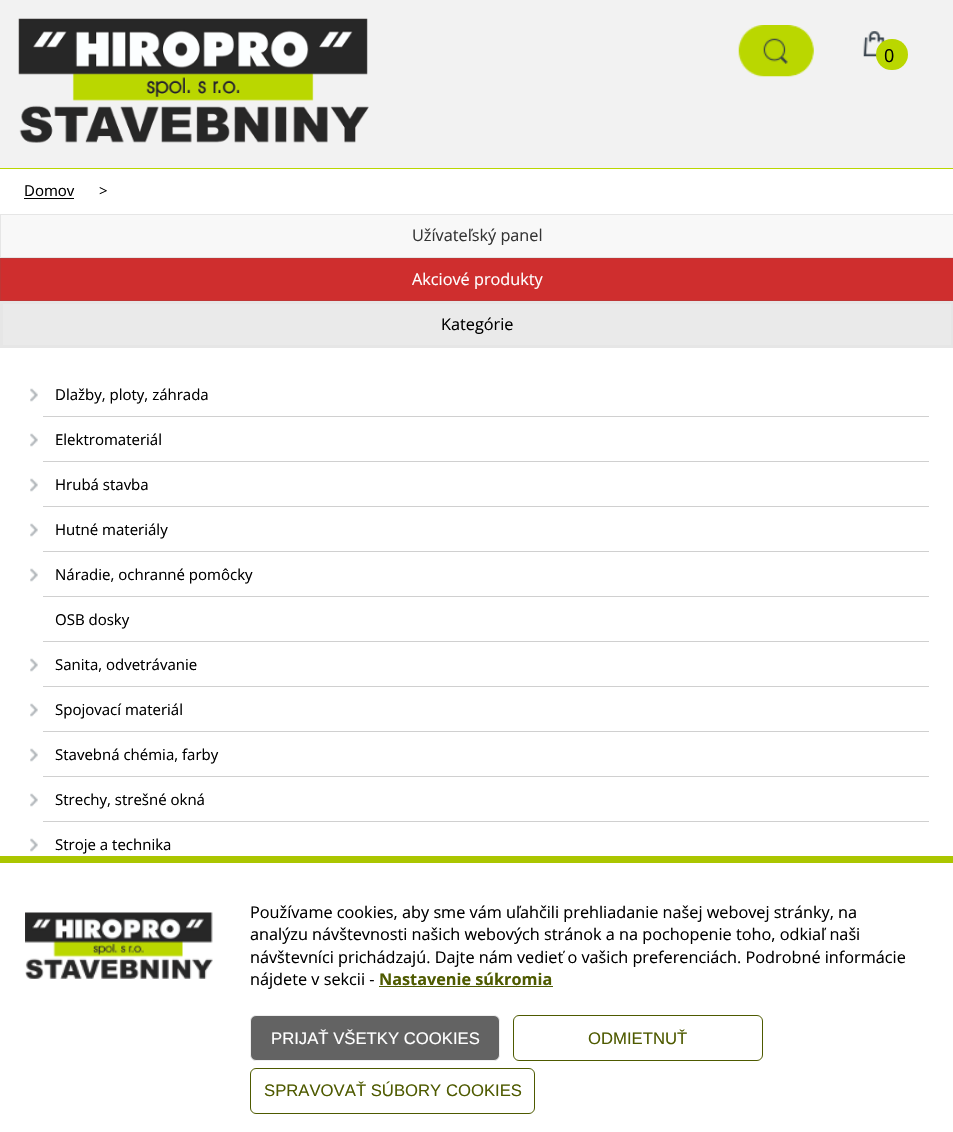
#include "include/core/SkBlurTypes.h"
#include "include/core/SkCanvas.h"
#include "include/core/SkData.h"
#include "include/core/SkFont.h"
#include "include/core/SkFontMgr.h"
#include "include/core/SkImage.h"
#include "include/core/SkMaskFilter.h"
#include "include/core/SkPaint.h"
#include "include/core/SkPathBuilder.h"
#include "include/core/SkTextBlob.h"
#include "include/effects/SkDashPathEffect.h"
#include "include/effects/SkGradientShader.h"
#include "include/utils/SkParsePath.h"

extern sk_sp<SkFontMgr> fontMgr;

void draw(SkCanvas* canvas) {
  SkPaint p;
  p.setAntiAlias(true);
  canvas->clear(SK_ColorWHITE);
  p.setColor(SkColorSetRGB(242, 242, 242));
  canvas->drawRect(SkRect::MakeLTRB(0, 0, 953, 168), p);
  p.setColor(SkColorSetRGB(186, 215, 0));
  canvas->drawRect(SkRect::MakeLTRB(0, 168, 953, 169), p);
  canvas->drawImageRect(SkImages::DeferredFromEncodedData(SkData::MakeFromFileName("images/1.png")), SkRect::MakeLTRB(18, 18, 369, 143), SkSamplingOptions());
  canvas->drawImageRect(SkImages::DeferredFromEncodedData(SkData::MakeFromFileName("images/2.png")), SkRect::MakeLTRB(738, 25, 814, 77), SkSamplingOptions());
  canvas->drawImageRect(SkImages::DeferredFromEncodedData(SkData::MakeFromFileName("images/3.png")), SkRect::MakeLTRB(863, 31, 885, 57), SkSamplingOptions());
  canvas->drawRoundRect(SkRect::MakeLTRB(876, 39, 908, 70), 15.5f, 15.5f, p);
  p.setColor(SK_ColorBLACK);
  canvas->drawRect(SkRect::MakeLTRB(24, 198, 74, 199), p);
  p.setColor(SkColorSetRGB(248, 248, 248));
  canvas->drawRect(SkRect::MakeLTRB(0.5f, 214.5f, 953.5f, 257.5f), p);
  p.setStyle(SkPaint::kStroke_Style);
  p.setStrokeWidth(1);
  p.setColor(SkColorSetRGB(230, 230, 230));
  canvas->drawRect(SkRect::MakeLTRB(0.5f, 214.5f, 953.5f, 257.5f), p);
  p.setStyle(SkPaint::kFill_Style);
  p.setColor(SkColorSetRGB(207, 46, 46));
  canvas->drawRect(SkRect::MakeLTRB(0.5f, 258.5f, 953.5f, 300.5f), p);
  p.setStyle(SkPaint::kStroke_Style);
  p.setColor(SkColorSetRGB(191, 54, 54));
  canvas->drawRect(SkRect::MakeLTRB(0.5f, 258.5f, 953.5f, 300.5f), p);
  p.setStyle(SkPaint::kFill_Style);
  p.setColor(SkColorSetRGB(234, 234, 234));
  canvas->drawRect(SkRect::MakeLTRB(1.5f, 302.5f, 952.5f, 346.5f), p);
  p.setStyle(SkPaint::kStroke_Style);
  p.setStrokeWidth(3);
  p.setColor(SkColorSetRGB(230, 230, 230));
  canvas->drawRect(SkRect::MakeLTRB(1.5f, 302.5f, 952.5f, 346.5f), p);
  canvas->drawImageRect(SkImages::DeferredFromEncodedData(SkData::MakeFromFileName("images/4.png")), SkRect::MakeLTRB(30, 388, 38, 402), SkSamplingOptions());
  p.setStyle(SkPaint::kFill_Style);
  p.setColor(SkColorSetRGB(208, 208, 208));
  canvas->drawRect(SkRect::MakeLTRB(43, 416, 929, 417), p);
  canvas->drawImageRect(SkImages::DeferredFromEncodedData(SkData::MakeFromFileName("images/4.png")), SkRect::MakeLTRB(30, 433, 38, 447), SkSamplingOptions());
  canvas->drawRect(SkRect::MakeLTRB(43, 461, 929, 462), p);
  canvas->drawImageRect(SkImages::DeferredFromEncodedData(SkData::MakeFromFileName("images/4.png")), SkRect::MakeLTRB(30, 478, 38, 492), SkSamplingOptions());
  canvas->drawRect(SkRect::MakeLTRB(43, 506, 929, 507), p);
  canvas->drawImageRect(SkImages::DeferredFromEncodedData(SkData::MakeFromFileName("images/4.png")), SkRect::MakeLTRB(30, 523, 38, 537), SkSamplingOptions());
  canvas->drawRect(SkRect::MakeLTRB(43, 551, 929, 552), p);
  canvas->drawImageRect(SkImages::DeferredFromEncodedData(SkData::MakeFromFileName("images/4.png")), SkRect::MakeLTRB(30, 568, 38, 582), SkSamplingOptions());
  canvas->drawRect(SkRect::MakeLTRB(43, 596, 929, 597), p);
  canvas->drawRect(SkRect::MakeLTRB(43, 641, 929, 642), p);
  canvas->drawImageRect(SkImages::DeferredFromEncodedData(SkData::MakeFromFileName("images/4.png")), SkRect::MakeLTRB(30, 658, 38, 672), SkSamplingOptions());
  canvas->drawRect(SkRect::MakeLTRB(43, 686, 929, 687), p);
  canvas->drawImageRect(SkImages::DeferredFromEncodedData(SkData::MakeFromFileName("images/4.png")), SkRect::MakeLTRB(30, 703, 38, 717), SkSamplingOptions());
  canvas->drawRect(SkRect::MakeLTRB(43, 731, 929, 732), p);
  canvas->drawImageRect(SkImages::DeferredFromEncodedData(SkData::MakeFromFileName("images/4.png")), SkRect::MakeLTRB(30, 748, 38, 762), SkSamplingOptions());
  canvas->drawRect(SkRect::MakeLTRB(43, 776, 929, 777), p);
  canvas->drawImageRect(SkImages::DeferredFromEncodedData(SkData::MakeFromFileName("images/4.png")), SkRect::MakeLTRB(30, 793, 38, 807), SkSamplingOptions());
  canvas->drawRect(SkRect::MakeLTRB(43, 821, 929, 822), p);
  canvas->drawImageRect(SkImages::DeferredFromEncodedData(SkData::MakeFromFileName("images/4.png")), SkRect::MakeLTRB(30, 838, 38, 852), SkSamplingOptions());
  p.setColor(SkColorSetRGB(171, 198, 0));
  canvas->drawRect(SkRect::MakeLTRB(0, 856, 953, 863), p);
  canvas->drawImageRect(SkImages::DeferredFromEncodedData(SkData::MakeFromFileName("images/5.png")), SkRect::MakeLTRB(25, 912, 213, 979), SkSamplingOptions());
  p.setColor(SkColorSetRGB(78, 90, 0));
  canvas->drawRect(SkRect::MakeLTRB(379, 986, 553, 987), p);
  p.setColor(SkColorSetRGB(99, 99, 99));
  canvas->drawRoundRect(SkRect::MakeLTRB(250.5f, 1015.5f, 499.5f, 1060.5f), 5.5f, 5.5f, p);
  p.setStyle(SkPaint::kStroke_Style);
  p.setStrokeWidth(1);
  p.setColor(SkColorSetRGB(239, 239, 239));
  canvas->drawRoundRect(SkRect::MakeLTRB(250.5f, 1015.5f, 499.5f, 1060.5f), 5.5f, 5.5f, p);
  p.setColor(SkColorSetRGB(78, 90, 0));
  canvas->drawRoundRect(SkRect::MakeLTRB(513.5f, 1015.5f, 762.5f, 1060.5f), 5.5f, 5.5f, p);
  canvas->drawRoundRect(SkRect::MakeLTRB(250.5f, 1068.5f, 534.5f, 1113.5f), 5.5f, 5.5f, p);
  SkFont font1(fontMgr->matchFamilyStyle("Open Sans", SkFontStyle::Normal()), 18);
  font1.setSubpixel(true);
  p.setStyle(SkPaint::kFill_Style);
  p.setColor(SK_ColorBLACK);
  canvas->drawString("0", 884, 62, font1, p);
  SkFont font2(fontMgr->matchFamilyStyle("Open Sans", SkFontStyle::Normal()), 15);
  font2.setSubpixel(true);
  canvas->drawString("Domov", 24, 196, font2, p);
  canvas->drawString(">", 99, 196, font2, p);
  SkFont font3(fontMgr->matchFamilyStyle("Open Sans", SkFontStyle::Normal()), 16.25f);
  font3.setSubpixel(true);
  p.setColor(SkColorSetRGB(53, 53, 53));
  canvas->drawString("Užívateľský panel", 412, 241, font3, p);
  p.setColor(SK_ColorWHITE);
  canvas->drawString("Akciové produkty", 412, 285, font3, p);
  p.setColor(SK_ColorBLACK);
  canvas->drawString("Kategórie", 441, 330, font3, p);
  canvas->drawString("Dlažby, ploty, záhrada", 55, 400, font2, p);
  canvas->drawString("Elektromateriál", 55, 445, font2, p);
  canvas->drawString("Hrubá stavba", 55, 490, font2, p);
  canvas->drawString("Hutné materiály", 55, 535, font2, p);
  canvas->drawString("Náradie, ochranné pomôcky", 55, 580, font2, p);
  canvas->drawString("OSB dosky", 55, 625, font2, p);
  canvas->drawString("Sanita, odvetrávanie", 55, 670, font2, p);
  canvas->drawString("Spojovací materiál", 55, 715, font2, p);
  canvas->drawString("Stavebná chémia, farby", 55, 760, font2, p);
  canvas->drawString("Strechy, strešné okná", 55, 805, font2, p);
  canvas->drawString("Stroje a technika", 55, 850, font2, p);
  canvas->drawString("Používame cookies, aby sme vám uľahčili prehliadanie našej webovej stránky, na", 250, 918, font3, p);
  canvas->drawString("analýzu návštevnosti našich webových stránok a na pochopenie toho, odkiaľ naši", 250, 940, font3, p);
  canvas->drawString("návštevníci prichádzajú. Dajte nám vedieť o vašich preferenciách. Podrobné informácie", 250, 963, font3, p);
  canvas->drawString("nájdete v sekcii -", 250, 985, font3, p);
  SkFont font4(fontMgr->matchFamilyStyle("Open Sans", SkFontStyle::Bold()), 16.25f);
  font4.setSubpixel(true);
  p.setColor(SkColorSetRGB(78, 90, 0));
  canvas->drawString("Nastavenie súkromia", 379, 985, font4, p);
  SkFont font5(fontMgr->matchFamilyStyle("Liberation Sans", SkFontStyle::Normal()), 16.7f);
  font5.setSubpixel(true);
  p.setColor(SK_ColorWHITE);
  canvas->drawString("PRIJAŤ VŠETKY COOKIES", 271, 1044, font5, p);
  p.setColor(SkColorSetRGB(78, 90, 0));
  canvas->drawString("ODMIETNUŤ", 588, 1044, font5, p);
  canvas->drawString("SPRAVOVAŤ SÚBORY COOKIES", 264, 1096, font5, p);
}
